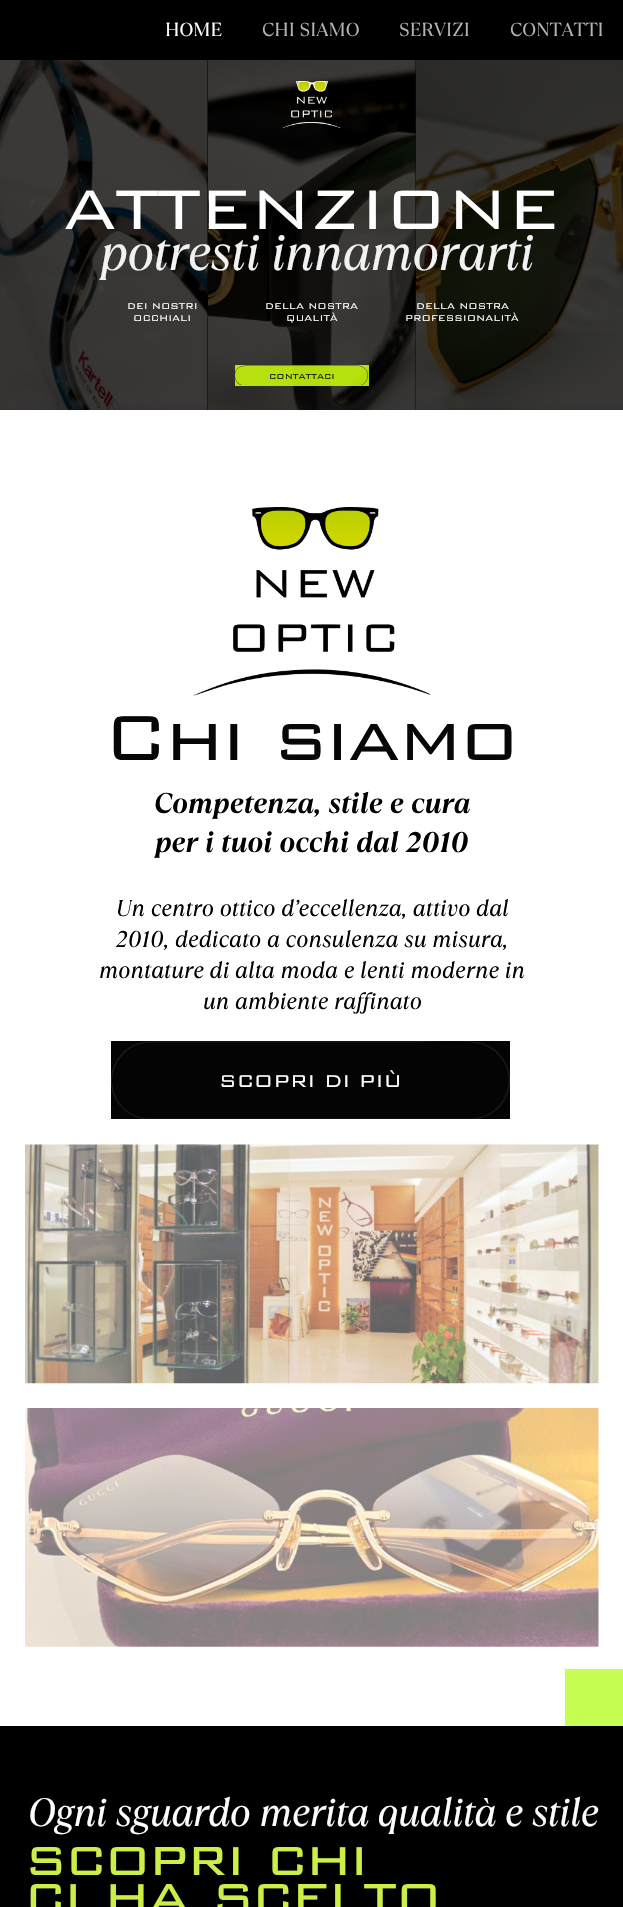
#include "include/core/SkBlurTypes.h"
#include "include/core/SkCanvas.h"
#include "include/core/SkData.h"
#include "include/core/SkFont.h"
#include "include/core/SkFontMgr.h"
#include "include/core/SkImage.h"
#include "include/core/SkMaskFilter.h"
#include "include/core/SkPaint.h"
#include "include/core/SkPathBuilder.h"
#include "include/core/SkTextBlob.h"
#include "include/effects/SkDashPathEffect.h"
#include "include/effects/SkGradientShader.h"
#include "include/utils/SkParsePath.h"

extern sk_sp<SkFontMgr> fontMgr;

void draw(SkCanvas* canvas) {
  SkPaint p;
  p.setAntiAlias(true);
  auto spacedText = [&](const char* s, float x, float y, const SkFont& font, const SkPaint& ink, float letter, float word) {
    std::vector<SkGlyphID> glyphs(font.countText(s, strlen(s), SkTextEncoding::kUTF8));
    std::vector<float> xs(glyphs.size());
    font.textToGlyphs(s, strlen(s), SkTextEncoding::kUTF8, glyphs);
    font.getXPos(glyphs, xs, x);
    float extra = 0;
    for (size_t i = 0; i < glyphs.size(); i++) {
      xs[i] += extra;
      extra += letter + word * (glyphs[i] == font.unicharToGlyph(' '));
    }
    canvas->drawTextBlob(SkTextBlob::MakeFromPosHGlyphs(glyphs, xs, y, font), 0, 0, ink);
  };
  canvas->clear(SK_ColorBLACK);
  canvas->drawImageRect(SkImages::DeferredFromEncodedData(SkData::MakeFromFileName("images/1.png")), SkRect::MakeLTRB(0, 60, 208, 410), SkSamplingOptions());
  canvas->drawImageRect(SkImages::DeferredFromEncodedData(SkData::MakeFromFileName("images/2.png")), SkRect::MakeLTRB(208, 60, 416, 410), SkSamplingOptions());
  canvas->drawImageRect(SkImages::DeferredFromEncodedData(SkData::MakeFromFileName("images/3.png")), SkRect::MakeLTRB(415, 60, 623, 410), SkSamplingOptions());
  canvas->drawImageRect(SkImages::DeferredFromEncodedData(SkData::MakeFromFileName("images/4.png")), SkRect::MakeLTRB(282, 81, 341, 129), SkSamplingOptions());
  p.setColor(SkColorSetARGB(230, 195, 244, 10));
  canvas->drawRect(SkRect::MakeLTRB(235, 365, 369, 386), p);
  canvas->save();
  canvas->clipRect(SkRect::MakeLTRB(235, 365, 369, 385));
  canvas->clipPath(SkPathBuilder().moveTo(245, 365.5f).lineTo(358, 365.5f).cubicTo(363.5f, 365.5f, 368, 370, 368, 375.5f).cubicTo(368, 381, 363.5f, 386, 358, 386).lineTo(245, 386).cubicTo(239, 386, 234.5f, 381, 234.5f, 375.5f).cubicTo(234.5f, 370, 239, 365.5f, 245, 365.5f).close().detach(), true);
  p.setStyle(SkPaint::kStroke_Style);
  p.setStrokeWidth(0.9f);
  p.setColor(SkColorSetARGB(230, 25, 25, 25));
  canvas->drawPath(SkPathBuilder().moveTo(245, 365.5f).lineTo(358, 365.5f).cubicTo(363.5f, 365.5f, 368, 370, 368, 375.5f).cubicTo(368, 381, 363.5f, 386, 358, 386).lineTo(245, 386).cubicTo(239, 386, 234.5f, 381, 234.5f, 375.5f).cubicTo(234.5f, 370, 239, 365.5f, 245, 365.5f).close().detach(), p);
  canvas->restore();
  p.setStyle(SkPaint::kFill_Style);
  p.setColor(SK_ColorWHITE);
  canvas->drawRect(SkRect::MakeLTRB(0, 410, 623, 1726), p);
  canvas->drawImageRect(SkImages::DeferredFromEncodedData(SkData::MakeFromFileName("images/5.png")), SkRect::MakeLTRB(193, 507, 431, 696), SkSamplingOptions());
  p.setColor(SkColorSetRGB(4, 4, 4));
  canvas->drawRect(SkRect::MakeLTRB(111, 1041, 510, 1119), p);
  canvas->save();
  canvas->clipRect(SkRect::MakeLTRB(111, 1041, 510, 1119));
  canvas->clipPath(SkPathBuilder().moveTo(150, 1041.5f).lineTo(470.5f, 1041.5f).cubicTo(481, 1041.5f, 491, 1045.5f, 498.5f, 1053).cubicTo(505.5f, 1060.5f, 510, 1070, 510, 1080.5f).cubicTo(510, 1091, 505.5f, 1101, 498.5f, 1108).cubicTo(491, 1115.5f, 481, 1119.5f, 470.5f, 1119.5f).lineTo(150, 1119.5f).cubicTo(139.5f, 1119.5f, 130, 1115.5f, 122.5f, 1108).cubicTo(115, 1101, 111, 1091, 111, 1080.5f).cubicTo(111, 1070, 115, 1060.5f, 122.5f, 1053).cubicTo(130, 1045.5f, 139.5f, 1041.5f, 150, 1041.5f).close().detach(), true);
  p.setStyle(SkPaint::kStroke_Style);
  p.setStrokeWidth(2.1f);
  p.setColor(SkColorSetRGB(28, 28, 28));
  canvas->drawPath(SkPathBuilder().moveTo(150, 1041.5f).lineTo(417.5f, 1041.5f).cubicTo(421.5f, 1041.5f, 468, 1037, 485.5f, 1044.5f).cubicTo(502.5f, 1051.5f, 512.5f, 1070, 509, 1088).cubicTo(505.5f, 1106, 489, 1119.5f, 470.5f, 1119.5f).lineTo(150, 1119.5f).cubicTo(137, 1119.5f, 125, 1113, 117.5f, 1102).cubicTo(114, 1097, 112, 1090.5f, 111, 1084.5f).cubicTo(109, 1062, 127.5f, 1041.5f, 150, 1041.5f).close().detach(), p);
  canvas->restore();
  canvas->drawImageRect(SkImages::DeferredFromEncodedData(SkData::MakeFromFileName("images/6.png")), SkRect::MakeLTRB(25, 1144, 599, 1384), SkSamplingOptions());
  canvas->drawImageRect(SkImages::DeferredFromEncodedData(SkData::MakeFromFileName("images/7.png")), SkRect::MakeLTRB(25, 1408, 599, 1647), SkSamplingOptions());
  p.setStyle(SkPaint::kFill_Style);
  p.setColor(SkColorSetRGB(198, 255, 81));
  canvas->drawRect(SkRect::MakeLTRB(565, 1669, 623, 1726), p);
  SkFont font1(fontMgr->matchFamilyStyle("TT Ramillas", SkFontStyle::Normal()), 18.75f);
  font1.setSubpixel(true);
  p.setColor(SkColorSetRGB(254, 254, 254));
  canvas->drawString("HOME", 165, 36, font1, p);
  p.setColor(SkColorSetRGB(179, 179, 179));
  canvas->drawString("CHI SIAMO", 262, 36, font1, p);
  canvas->drawString("SERVIZI", 399, 36, font1, p);
  canvas->drawString("CONTATTI", 510, 36, font1, p);
  SkFont font2(fontMgr->matchFamilyStyle("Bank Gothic", SkFontStyle(300, SkFontStyle::kNormal_Width, SkFontStyle::kUpright_Slant)), 74.25f);
  font2.setSubpixel(true);
  p.setColor(SkColorSetRGB(254, 254, 254));
  spacedText("ATTENZIONE", 63, 229, font2, p, -1.5f, 0);
  SkFont font3(fontMgr->matchFamilyStyle("TT Ramillas", SkFontStyle::Italic()), 50.5f);
  font3.setSubpixel(true);
  p.setColor(SkColorSetRGB(242, 242, 242));
  spacedText("potresti innamorarti", 100, 270, font3, p, -1, 0);
  SkFont font4(fontMgr->matchFamilyStyle("Bank Gothic", SkFontStyle(300, SkFontStyle::kNormal_Width, SkFontStyle::kUpright_Slant)), 11);
  font4.setSubpixel(true);
  p.setColor(SkColorSetRGB(254, 254, 254));
  canvas->drawString("DEI NOSTRI", 127, 309, font4, p);
  canvas->drawString("OCCHIALI", 133, 321, font4, p);
  canvas->drawString("DELLA NOSTRA", 265, 309, font4, p);
  canvas->drawString("QUALITÀ", 286, 321, font4, p);
  canvas->drawString("DELLA NOSTRA", 416, 309, font4, p);
  canvas->drawString("PROFESSIONALITÀ", 405, 321, font4, p);
  SkFont font5(fontMgr->matchFamilyStyle("Bank Gothic", SkFontStyle(300, SkFontStyle::kNormal_Width, SkFontStyle::kUpright_Slant)), 9.75f);
  font5.setSubpixel(true);
  p.setColor(SkColorSetRGB(17, 21, 1));
  canvas->drawString("CONTATTACI", 269, 379, font5, p);
  SkFont font6(fontMgr->matchFamilyStyle("Bank Gothic", SkFontStyle(300, SkFontStyle::kNormal_Width, SkFontStyle::kUpright_Slant)), 85);
  font6.setSubpixel(true);
  p.setColor(SkColorSetRGB(7, 7, 7));
  spacedText("Chi siamo", 103, 760, font6, p, -1.75f, 0);
  SkFont font7(fontMgr->matchFamilyStyle("TT Ramillas", SkFontStyle::BoldItalic()), 28.4f);
  font7.setSubpixel(true);
  p.setColor(SK_ColorBLACK);
  canvas->drawString("Competenza, stile e cura", 154, 813, font7, p);
  canvas->drawString("per i tuoi occhi dal 2010", 155, 852, font7, p);
  SkFont font8(fontMgr->matchFamilyStyle("TT Ramillas", SkFontStyle::Italic()), 22.75f);
  font8.setSubpixel(true);
  canvas->drawString("Un centro ottico d’eccellenza, attivo dal", 116, 916, font8, p);
  canvas->drawString("2010, dedicato a consulenza su misura,", 116, 947, font8, p);
  canvas->drawString("montature di alta moda e lenti moderne in", 99, 978, font8, p);
  canvas->drawString("un ambiente raffinato", 203, 1009, font8, p);
  SkFont font9(fontMgr->matchFamilyStyle("Bank Gothic", SkFontStyle(300, SkFontStyle::kNormal_Width, SkFontStyle::kUpright_Slant)), 22.75f);
  font9.setSubpixel(true);
  p.setColor(SkColorSetRGB(254, 254, 254));
  canvas->drawString("SCOPRI DI PIÙ", 219, 1087, font9, p);
  SkFont font10(fontMgr->matchFamilyStyle("TT Ramillas", SkFontStyle::Italic()), 39.4f);
  font10.setSubpixel(true);
  spacedText("Ogni sguardo merita qualità e stile", 28, 1826, font10, p, -0.8f, 0);
  SkFont font11(fontMgr->matchFamilyStyle("Bank Gothic", SkFontStyle(300, SkFontStyle::kNormal_Width, SkFontStyle::kUpright_Slant)), 65.75f);
  font11.setSubpixel(true);
  p.setColor(SkColorSetRGB(204, 239, 71));
  spacedText("scopri chi", 25, 1875, font11, p, -1.25f, 0);
  spacedText("ci ha scelto", 25, 1912, font11, p, -1.25f, 0);
}
